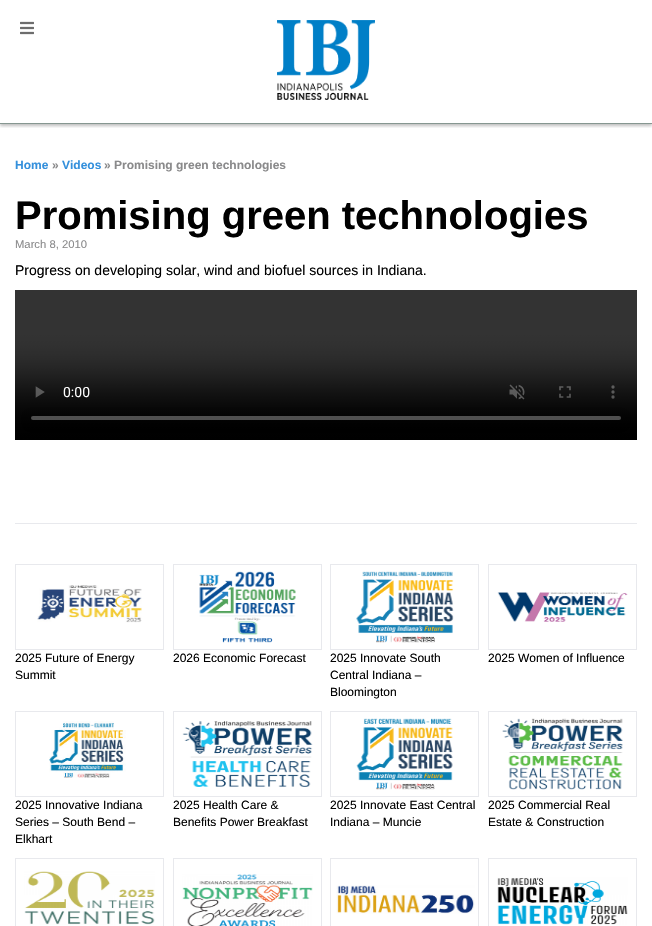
#include "include/core/SkBlurTypes.h"
#include "include/core/SkCanvas.h"
#include "include/core/SkData.h"
#include "include/core/SkFont.h"
#include "include/core/SkFontMgr.h"
#include "include/core/SkImage.h"
#include "include/core/SkMaskFilter.h"
#include "include/core/SkPaint.h"
#include "include/core/SkPathBuilder.h"
#include "include/core/SkTextBlob.h"
#include "include/effects/SkDashPathEffect.h"
#include "include/effects/SkGradientShader.h"
#include "include/utils/SkParsePath.h"

extern sk_sp<SkFontMgr> fontMgr;

void draw(SkCanvas* canvas) {
  SkPaint p;
  p.setAntiAlias(true);
  canvas->clear(SK_ColorWHITE);
  canvas->save();
  canvas->clipRect(SkRect::MakeLTRB(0, 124, 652, 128));
  p.setColor(SkColorSetARGB(64, 0, 0, 0));
  p.setMaskFilter(SkMaskFilter::MakeBlur(kNormal_SkBlurStyle, 1.5f));
  canvas->drawRect(SkRect::MakeLTRB(0, 2, 652, 126), p);
  p.setMaskFilter(nullptr);
  canvas->restore();
  p.setColor(SkColorSetRGB(134, 151, 145));
  canvas->drawRect(SkRect::MakeLTRB(0, 123, 652, 124), p);
  canvas->drawImageRect(SkImages::DeferredFromEncodedData(SkData::MakeFromFileName("images/1.png")), SkRect::MakeLTRB(20, 21, 34, 35), SkSamplingOptions());
  canvas->drawImageRect(SkImages::DeferredFromEncodedData(SkData::MakeFromFileName("images/2.png")), SkRect::MakeLTRB(277, 20, 375, 100), SkSamplingOptions());
  canvas->drawImageRect(SkImages::DeferredFromEncodedData(SkData::MakeFromFileName("images/3.png")), SkRect::MakeLTRB(15, 290, 637, 440), SkSamplingOptions());
  p.setColor(SkColorSetRGB(232, 233, 237));
  canvas->drawRect(SkRect::MakeLTRB(15, 523, 637, 524), p);
  p.setStyle(SkPaint::kStroke_Style);
  p.setStrokeWidth(1);
  canvas->drawRect(SkRect::MakeLTRB(15.5f, 564.5f, 163.5f, 649.5f), p);
  canvas->drawImageRect(SkImages::DeferredFromEncodedData(SkData::MakeFromFileName("images/4.png")), SkRect::MakeLTRB(37, 585, 142, 623), SkSamplingOptions());
  canvas->drawRect(SkRect::MakeLTRB(173.5f, 564.5f, 321.5f, 649.5f), p);
  canvas->drawImageRect(SkImages::DeferredFromEncodedData(SkData::MakeFromFileName("images/5.png")), SkRect::MakeLTRB(199, 571, 296, 643), SkSamplingOptions());
  canvas->drawRect(SkRect::MakeLTRB(330.5f, 564.5f, 478.5f, 649.5f), p);
  canvas->drawImageRect(SkImages::DeferredFromEncodedData(SkData::MakeFromFileName("images/6.png")), SkRect::MakeLTRB(356, 571, 454, 643), SkSamplingOptions());
  canvas->drawRect(SkRect::MakeLTRB(488.5f, 564.5f, 636.5f, 649.5f), p);
  canvas->drawImageRect(SkImages::DeferredFromEncodedData(SkData::MakeFromFileName("images/7.png")), SkRect::MakeLTRB(497, 592, 628, 622), SkSamplingOptions());
  canvas->drawRect(SkRect::MakeLTRB(15.5f, 711.5f, 163.5f, 796.5f), p);
  canvas->drawImageRect(SkImages::DeferredFromEncodedData(SkData::MakeFromFileName("images/8.png")), SkRect::MakeLTRB(49, 721, 126, 778), SkSamplingOptions());
  canvas->drawRect(SkRect::MakeLTRB(173.5f, 711.5f, 321.5f, 796.5f), p);
  canvas->drawImageRect(SkImages::DeferredFromEncodedData(SkData::MakeFromFileName("images/9.png")), SkRect::MakeLTRB(182, 721, 313, 787), SkSamplingOptions());
  canvas->drawRect(SkRect::MakeLTRB(330.5f, 711.5f, 478.5f, 796.5f), p);
  canvas->drawImageRect(SkImages::DeferredFromEncodedData(SkData::MakeFromFileName("images/10.png")), SkRect::MakeLTRB(356, 718, 453, 790), SkSamplingOptions());
  canvas->drawRect(SkRect::MakeLTRB(488.5f, 711.5f, 636.5f, 796.5f), p);
  canvas->drawImageRect(SkImages::DeferredFromEncodedData(SkData::MakeFromFileName("images/11.png")), SkRect::MakeLTRB(502, 718, 623, 790), SkSamplingOptions());
  canvas->drawRect(SkRect::MakeLTRB(15.5f, 858.5f, 163.5f, 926.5f), p);
  canvas->drawImageRect(SkImages::DeferredFromEncodedData(SkData::MakeFromFileName("images/12.png")), SkRect::MakeLTRB(24, 871, 155, 925), SkSamplingOptions());
  canvas->drawRect(SkRect::MakeLTRB(173.5f, 858.5f, 321.5f, 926.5f), p);
  canvas->drawImageRect(SkImages::DeferredFromEncodedData(SkData::MakeFromFileName("images/13.png")), SkRect::MakeLTRB(182, 874, 313, 926), SkSamplingOptions());
  canvas->drawRect(SkRect::MakeLTRB(330.5f, 858.5f, 478.5f, 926.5f), p);
  canvas->drawImageRect(SkImages::DeferredFromEncodedData(SkData::MakeFromFileName("images/14.png")), SkRect::MakeLTRB(336, 885, 475, 914), SkSamplingOptions());
  canvas->drawRect(SkRect::MakeLTRB(488.5f, 858.5f, 636.5f, 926.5f), p);
  canvas->drawImageRect(SkImages::DeferredFromEncodedData(SkData::MakeFromFileName("images/15.png")), SkRect::MakeLTRB(497, 877, 628, 925), SkSamplingOptions());
  SkFont font1(fontMgr->matchFamilyStyle("Liberation Sans", SkFontStyle::Bold()), 12);
  font1.setSubpixel(true);
  p.setStyle(SkPaint::kFill_Style);
  p.setColor(SkColorSetRGB(52, 144, 220));
  canvas->drawString("Home", 15, 169, font1, p);
  p.setColor(SkColorSetRGB(138, 138, 139));
  canvas->drawString("»", 52, 169, font1, p);
  p.setColor(SkColorSetRGB(52, 144, 220));
  canvas->drawString("Videos", 62, 169, font1, p);
  p.setColor(SkColorSetRGB(138, 138, 139));
  canvas->drawString("» Promising green technologies", 104, 169, font1, p);
  SkFont font2(fontMgr->matchFamilyStyle("Liberation Sans", SkFontStyle::Bold()), 40);
  font2.setSubpixel(true);
  p.setColor(SK_ColorBLACK);
  canvas->drawString("Promising green technologies", 15, 229, font2, p);
  SkFont font3(fontMgr->matchFamilyStyle("Liberation Sans", SkFontStyle::Normal()), 11.25f);
  font3.setSubpixel(true);
  p.setColor(SkColorSetRGB(138, 138, 139));
  canvas->drawString("March 8, 2010", 15, 248, font3, p);
  SkFont font4(fontMgr->matchFamilyStyle("Liberation Sans", SkFontStyle::Normal()), 14);
  font4.setSubpixel(true);
  p.setColor(SK_ColorBLACK);
  canvas->drawString("Progress on developing solar, wind and biofuel sources in Indiana.", 15, 275, font4, p);
  SkFont font5(fontMgr->matchFamilyStyle("Liberation Sans", SkFontStyle::Normal()), 12);
  font5.setSubpixel(true);
  canvas->drawString("2025 Future of Energy", 15, 662, font5, p);
  canvas->drawString("Summit", 15, 679, font5, p);
  canvas->drawString("2026 Economic Forecast", 173, 662, font5, p);
  canvas->drawString("2025 Innovate South", 330, 662, font5, p);
  canvas->drawString("Central Indiana –", 330, 679, font5, p);
  canvas->drawString("Bloomington", 330, 696, font5, p);
  canvas->drawString("2025 Women of Influence", 488, 662, font5, p);
  canvas->drawString("2025 Innovative Indiana", 15, 809, font5, p);
  canvas->drawString("Series – South Bend –", 15, 826, font5, p);
  canvas->drawString("Elkhart", 15, 843, font5, p);
  canvas->drawString("2025 Health Care &", 173, 809, font5, p);
  canvas->drawString("Benefits Power Breakfast", 173, 826, font5, p);
  canvas->drawString("2025 Innovate East Central", 330, 809, font5, p);
  canvas->drawString("Indiana – Muncie", 330, 826, font5, p);
  canvas->drawString("2025 Commercial Real", 488, 809, font5, p);
  canvas->drawString("Estate & Construction", 488, 826, font5, p);
}
